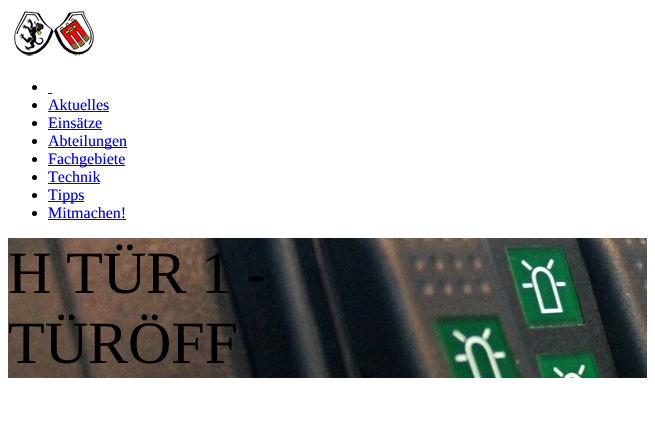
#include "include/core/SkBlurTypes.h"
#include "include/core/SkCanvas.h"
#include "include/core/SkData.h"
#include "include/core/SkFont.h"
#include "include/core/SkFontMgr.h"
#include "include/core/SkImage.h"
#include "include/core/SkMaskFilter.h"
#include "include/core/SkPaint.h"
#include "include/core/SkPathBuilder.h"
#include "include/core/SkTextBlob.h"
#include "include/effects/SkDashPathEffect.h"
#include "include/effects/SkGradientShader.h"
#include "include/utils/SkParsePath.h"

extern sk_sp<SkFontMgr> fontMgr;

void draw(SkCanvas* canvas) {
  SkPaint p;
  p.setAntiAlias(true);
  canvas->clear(SK_ColorWHITE);
  canvas->drawImageRect(SkImages::DeferredFromEncodedData(SkData::MakeFromFileName("images/1.png")), SkRect::MakeLTRB(14, 11, 94, 56), SkSamplingOptions());
  p.setColor(SK_ColorBLACK);
  canvas->drawCircle(34.5f, 87.5f, 2.5f, p);
  p.setColor(SkColorSetRGB(0, 0, 238));
  canvas->drawRect(SkRect::MakeLTRB(48, 93, 52, 94), p);
  p.setColor(SK_ColorBLACK);
  canvas->drawCircle(34.5f, 105.5f, 2.5f, p);
  p.setColor(SkColorSetRGB(0, 0, 238));
  canvas->drawRect(SkRect::MakeLTRB(48, 111, 109, 112), p);
  p.setColor(SK_ColorBLACK);
  canvas->drawCircle(34.5f, 123.5f, 2.5f, p);
  p.setColor(SkColorSetRGB(0, 0, 238));
  canvas->drawRect(SkRect::MakeLTRB(48, 129, 102, 130), p);
  p.setColor(SK_ColorBLACK);
  canvas->drawCircle(34.5f, 141.5f, 2.5f, p);
  p.setColor(SkColorSetRGB(0, 0, 238));
  canvas->drawRect(SkRect::MakeLTRB(48, 147, 127, 148), p);
  p.setColor(SK_ColorBLACK);
  canvas->drawCircle(34.5f, 159.5f, 2.5f, p);
  p.setColor(SkColorSetRGB(0, 0, 238));
  canvas->drawRect(SkRect::MakeLTRB(48, 165, 125, 166), p);
  p.setColor(SK_ColorBLACK);
  canvas->drawCircle(34.5f, 177.5f, 2.5f, p);
  p.setColor(SkColorSetRGB(0, 0, 238));
  canvas->drawRect(SkRect::MakeLTRB(48, 183, 100, 184), p);
  p.setColor(SK_ColorBLACK);
  canvas->drawCircle(34.5f, 195.5f, 2.5f, p);
  p.setColor(SkColorSetRGB(0, 0, 238));
  canvas->drawRect(SkRect::MakeLTRB(48, 201, 84, 202), p);
  p.setColor(SK_ColorBLACK);
  canvas->drawCircle(34.5f, 213.5f, 2.5f, p);
  p.setColor(SkColorSetRGB(0, 0, 238));
  canvas->drawRect(SkRect::MakeLTRB(48, 219, 126, 220), p);
  canvas->drawImageRect(SkImages::DeferredFromEncodedData(SkData::MakeFromFileName("images/2.png")), SkRect::MakeLTRB(8, 238, 647, 378), SkSamplingOptions());
  SkFont font1(fontMgr->matchFamilyStyle("Liberation Serif", SkFontStyle::Normal()), 16);
  font1.setSubpixel(true);
  canvas->drawString("Aktuelles", 48, 110, font1, p);
  canvas->drawString("Einsätze", 48, 128, font1, p);
  canvas->drawString("Abteilungen", 48, 146, font1, p);
  canvas->drawString("Fachgebiete", 48, 164, font1, p);
  canvas->drawString("Technik", 48, 182, font1, p);
  canvas->drawString("Tipps", 48, 200, font1, p);
  canvas->drawString("Mitmachen!", 48, 218, font1, p);
  SkFont font2(fontMgr->matchFamilyStyle("Liberation Serif", SkFontStyle::Normal()), 60);
  font2.setSubpixel(true);
  p.setColor(SK_ColorBLACK);
  canvas->drawString("H TÜR 1 -", 8, 293, font2, p);
  canvas->drawString("TÜRÖFF", 8, 363, font2, p);
}
